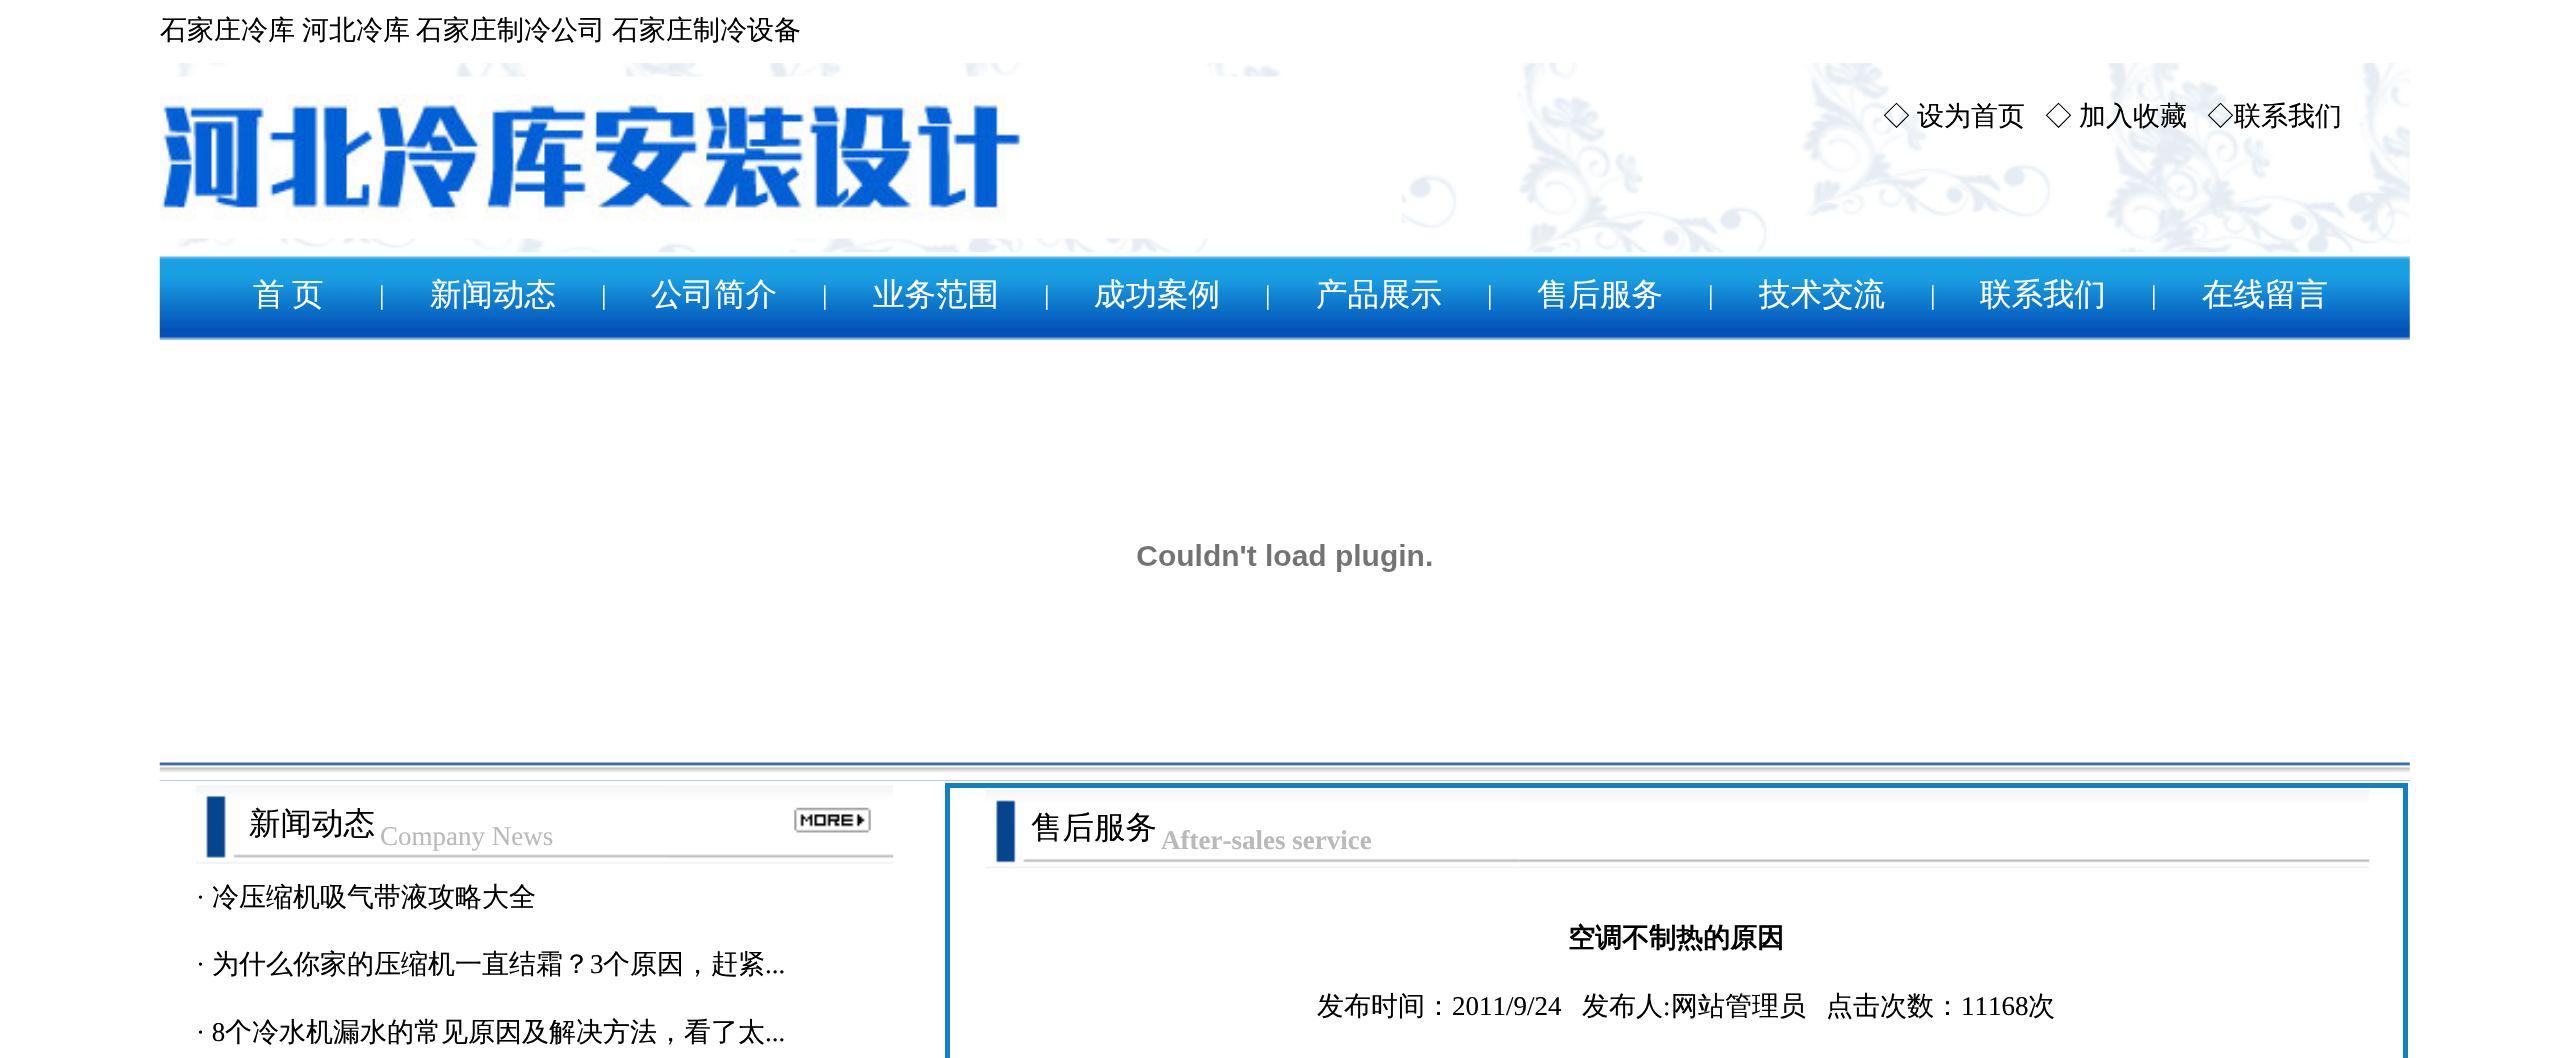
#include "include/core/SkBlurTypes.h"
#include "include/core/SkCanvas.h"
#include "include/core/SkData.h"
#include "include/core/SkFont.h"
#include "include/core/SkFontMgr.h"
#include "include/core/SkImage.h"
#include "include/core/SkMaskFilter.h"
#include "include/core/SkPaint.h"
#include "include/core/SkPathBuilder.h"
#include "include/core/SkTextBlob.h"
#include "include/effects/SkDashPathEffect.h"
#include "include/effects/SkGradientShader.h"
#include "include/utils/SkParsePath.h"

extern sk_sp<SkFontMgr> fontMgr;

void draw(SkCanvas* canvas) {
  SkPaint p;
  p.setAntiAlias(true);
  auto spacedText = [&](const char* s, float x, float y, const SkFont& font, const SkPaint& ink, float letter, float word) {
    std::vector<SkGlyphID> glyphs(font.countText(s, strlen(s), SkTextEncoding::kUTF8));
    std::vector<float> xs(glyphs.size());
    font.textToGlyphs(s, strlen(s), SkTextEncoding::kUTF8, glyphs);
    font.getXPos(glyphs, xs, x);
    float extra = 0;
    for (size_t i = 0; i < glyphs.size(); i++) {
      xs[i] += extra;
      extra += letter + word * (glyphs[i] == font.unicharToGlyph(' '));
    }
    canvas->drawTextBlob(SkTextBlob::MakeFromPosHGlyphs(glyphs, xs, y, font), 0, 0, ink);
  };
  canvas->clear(SK_ColorWHITE);
  canvas->drawImageRect(SkImages::DeferredFromEncodedData(SkData::MakeFromFileName("images/1.png")), SkRect::MakeLTRB(171, 63, 2410, 252), SkSamplingOptions());
  canvas->drawImageRect(SkImages::DeferredFromEncodedData(SkData::MakeFromFileName("images/2.png")), SkRect::MakeLTRB(159, 76, 1402, 239), SkSamplingOptions());
  canvas->drawImageRect(SkImages::DeferredFromEncodedData(SkData::MakeFromFileName("images/3.png")), SkRect::MakeLTRB(159, 255, 2410, 340), SkSamplingOptions());
  canvas->drawImageRect(SkImages::DeferredFromEncodedData(SkData::MakeFromFileName("images/4.png")), SkRect::MakeLTRB(1137, 544, 1432, 572), SkSamplingOptions());
  canvas->drawImageRect(SkImages::DeferredFromEncodedData(SkData::MakeFromFileName("images/5.png")), SkRect::MakeLTRB(159, 762, 2410, 781), SkSamplingOptions());
  canvas->drawImageRect(SkImages::DeferredFromEncodedData(SkData::MakeFromFileName("images/6.png")), SkRect::MakeLTRB(196, 785, 666, 864), SkSamplingOptions());
  canvas->drawImageRect(SkImages::DeferredFromEncodedData(SkData::MakeFromFileName("images/7.png")), SkRect::MakeLTRB(666, 785, 894, 864), SkSamplingOptions());
  canvas->drawImageRect(SkImages::DeferredFromEncodedData(SkData::MakeFromFileName("images/8.png")), SkRect::MakeLTRB(794, 807, 871, 833), SkSamplingOptions());
  p.setStyle(SkPaint::kStroke_Style);
  p.setStrokeWidth(5);
  p.setColor(SkColorSetRGB(16, 130, 191));
  canvas->drawRect(SkRect::MakeLTRB(947.5f, 785.5f, 2405.5f, 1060.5f), p);
  canvas->drawImageRect(SkImages::DeferredFromEncodedData(SkData::MakeFromFileName("images/9.png")), SkRect::MakeLTRB(985, 790, 1519, 869), SkSamplingOptions());
  canvas->drawImageRect(SkImages::DeferredFromEncodedData(SkData::MakeFromFileName("images/10.png")), SkRect::MakeLTRB(1519, 790, 2370, 869), SkSamplingOptions());
  SkFont font1(fontMgr->matchFamilyStyle("WenQuanYi Zen Hei", SkFontStyle(500, SkFontStyle::kNormal_Width, SkFontStyle::kUpright_Slant)), 27);
  font1.setSubpixel(true);
  p.setStyle(SkPaint::kFill_Style);
  p.setColor(SK_ColorBLACK);
  canvas->drawString("石家庄冷库", 160, 39, font1, p);
  canvas->drawString("河北冷库", 302, 39, font1, p);
  canvas->drawString("石家庄制冷公司", 416, 39, font1, p);
  canvas->drawString("石家庄制冷设备", 612, 39, font1, p);
  canvas->drawString("◇", 1883, 125, font1, p);
  canvas->drawString("设为首页", 1917, 125, font1, p);
  canvas->drawString("◇", 2045, 125, font1, p);
  canvas->drawString("加入收藏", 2079, 125, font1, p);
  canvas->drawString("◇联系我们", 2207, 125, font1, p);
  SkFont font2(fontMgr->matchFamilyStyle("WenQuanYi Zen Hei", SkFontStyle(500, SkFontStyle::kNormal_Width, SkFontStyle::kUpright_Slant)), 31.5f);
  font2.setSubpixel(true);
  p.setColor(SK_ColorWHITE);
  spacedText("首 页", 253, 305, font2, p, 0, -2);
  SkFont font3(fontMgr->matchFamilyStyle("Liberation Serif", SkFontStyle::Normal()), 27);
  font3.setSubpixel(true);
  canvas->drawString("|", 379, 304, font3, p);
  canvas->drawString("新闻动态", 430, 305, font2, p);
  canvas->drawString("|", 601, 304, font3, p);
  canvas->drawString("公司简介", 651, 305, font2, p);
  canvas->drawString("|", 822, 304, font3, p);
  canvas->drawString("业务范围", 873, 305, font2, p);
  canvas->drawString("|", 1044, 304, font3, p);
  canvas->drawString("成功案例", 1094, 305, font2, p);
  canvas->drawString("|", 1265, 304, font3, p);
  canvas->drawString("产品展示", 1316, 305, font2, p);
  canvas->drawString("|", 1487, 304, font3, p);
  canvas->drawString("售后服务", 1537, 305, font2, p);
  canvas->drawString("|", 1708, 304, font3, p);
  canvas->drawString("技术交流", 1759, 305, font2, p);
  canvas->drawString("|", 1930, 304, font3, p);
  canvas->drawString("联系我们", 1980, 305, font2, p);
  canvas->drawString("|", 2151, 304, font3, p);
  canvas->drawString("在线留言", 2202, 305, font2, p);
  p.setColor(SK_ColorBLACK);
  canvas->drawString("新闻动态", 249, 834, font2, p);
  p.setColor(SkColorSetRGB(186, 186, 186));
  canvas->drawString("Company News", 380, 845, font3, p);
  p.setColor(SK_ColorBLACK);
  canvas->drawString("·", 196, 906, font3, p);
  canvas->drawString("冷压缩机吸气带液攻略大全", 212, 906, font1, p);
  canvas->drawString("·", 196, 973, font3, p);
  canvas->drawString("为什么你家的压缩机一直结霜？", 212, 973, font1, p);
  canvas->drawString("3", 590, 973, font3, p);
  canvas->drawString("个原因，赶紧", 603, 973, font1, p);
  canvas->drawString("...", 765, 973, font3, p);
  canvas->drawString("· 8", 196, 1041, font3, p);
  canvas->drawString("个冷水机漏水的常见原因及解决方法，看了太", 225, 1041, font1, p);
  canvas->drawString("...", 765, 1041, font3, p);
  canvas->drawString("售后服务", 1031, 838, font2, p);
  SkFont font4(fontMgr->matchFamilyStyle("Liberation Serif", SkFontStyle::Bold()), 27);
  font4.setSubpixel(true);
  p.setColor(SkColorSetRGB(186, 186, 186));
  canvas->drawString("After-sales service", 1161, 849, font4, p);
  SkFont font5(fontMgr->matchFamilyStyle("WenQuanYi Zen Hei", SkFontStyle::Bold()), 27);
  font5.setSubpixel(true);
  p.setColor(SK_ColorBLACK);
  canvas->drawString("空调不制热的原因", 1568, 947, font5, p);
  canvas->drawString("发布时间：", 1317, 1015, font1, p);
  canvas->drawString("2011/9/24", 1452, 1015, font3, p);
  canvas->drawString("发布人", 1582, 1015, font1, p);
  canvas->drawString(":", 1663, 1015, font3, p);
  canvas->drawString("网站管理员", 1671, 1015, font1, p);
  canvas->drawString("点击次数：", 1826, 1015, font1, p);
  canvas->drawString("11168", 1961, 1015, font3, p);
  canvas->drawString("次", 2028, 1015, font1, p);
}
